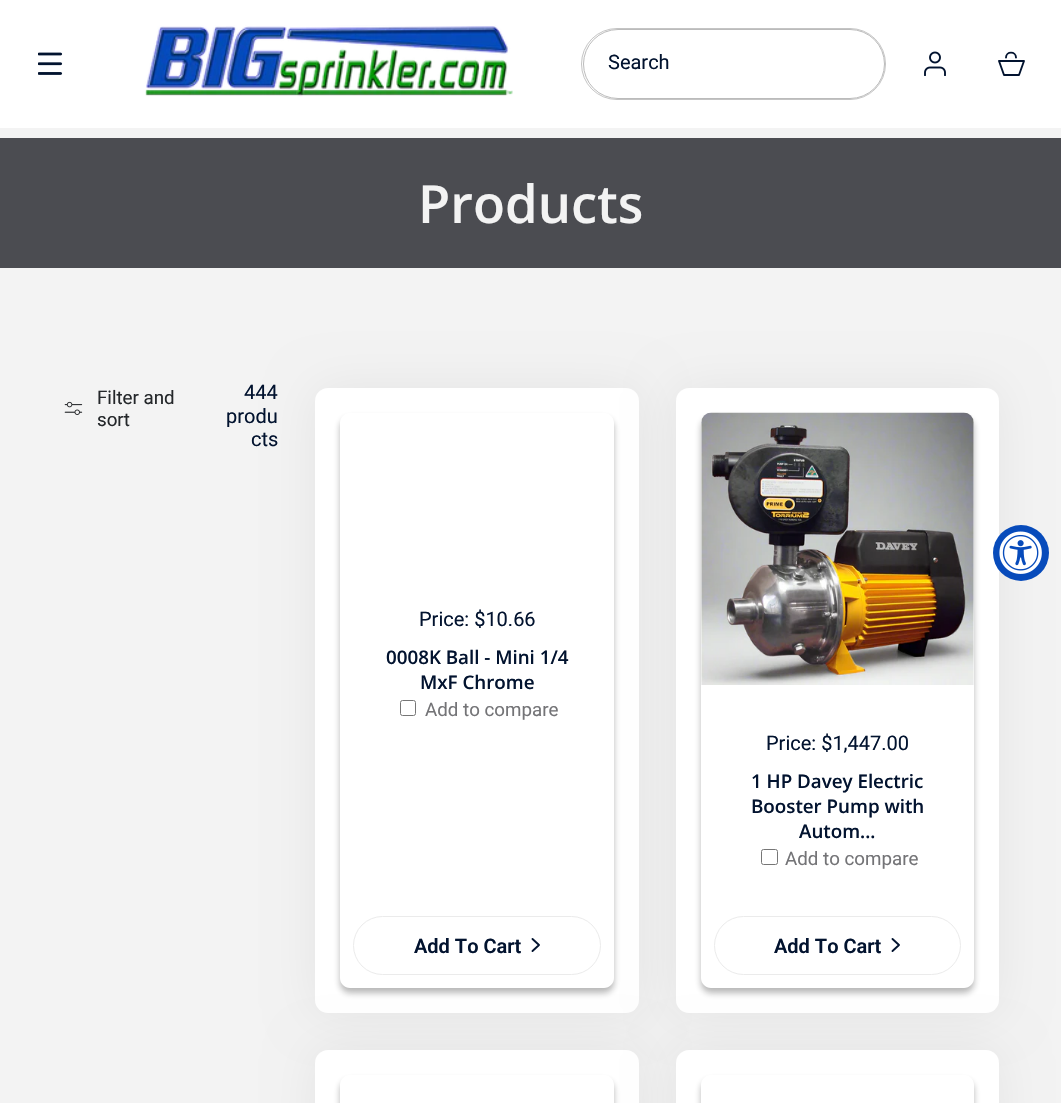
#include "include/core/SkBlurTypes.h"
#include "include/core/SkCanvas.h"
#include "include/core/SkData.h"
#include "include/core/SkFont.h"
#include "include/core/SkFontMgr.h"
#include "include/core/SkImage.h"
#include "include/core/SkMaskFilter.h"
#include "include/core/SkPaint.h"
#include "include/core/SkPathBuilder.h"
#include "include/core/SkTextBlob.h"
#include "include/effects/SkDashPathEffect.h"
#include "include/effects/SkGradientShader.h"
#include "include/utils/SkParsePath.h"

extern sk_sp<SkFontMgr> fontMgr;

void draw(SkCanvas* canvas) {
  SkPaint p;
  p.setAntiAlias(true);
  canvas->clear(SkColorSetRGB(243, 243, 243));
  p.setColor(SK_ColorWHITE);
  canvas->drawRect(SkRect::MakeLTRB(0, 0, 1061, 128), p);
  canvas->drawImageRect(SkImages::DeferredFromEncodedData(SkData::MakeFromFileName("images/1.png")), SkRect::MakeLTRB(38, 52, 63, 75), SkSamplingOptions());
  canvas->drawImageRect(SkImages::DeferredFromEncodedData(SkData::MakeFromFileName("images/2.png")), SkRect::MakeLTRB(145, 25, 513, 97), SkSamplingOptions());
  p.setStyle(SkPaint::kStroke_Style);
  p.setStrokeWidth(1);
  p.setColor(SkColorSetRGB(196, 196, 196));
  canvas->drawRoundRect(SkRect::MakeLTRB(581.5f, 28.5f, 885.5f, 99.5f), 35.5f, 35.5f, p);
  p.setColor(SkColorSetRGB(187, 187, 187));
  canvas->drawRoundRect(SkRect::MakeLTRB(583.5f, 29.5f, 884.5f, 98.5f), 34.5f, 34.5f, p);
  canvas->drawImageRect(SkImages::DeferredFromEncodedData(SkData::MakeFromFileName("images/3.png")), SkRect::MakeLTRB(924, 51, 946, 76), SkSamplingOptions());
  p.setStrokeWidth(1.9f);
  p.setStrokeCap(SkPaint::kRound_Cap);
  p.setStrokeJoin(SkPaint::kRound_Join);
  p.setColor(SkColorSetRGB(2, 19, 47));
  canvas->drawPath(SkPathBuilder().moveTo(1016, 57.5f).cubicTo(1016, 51, 1006, 51, 1006, 57.5f).moveTo(999, 61).lineTo(1024, 61).lineTo(1019, 75).lineTo(1004, 75).close().detach(), p);
  p.setStyle(SkPaint::kFill_Style);
  p.setColor(SkColorSetRGB(75, 76, 81));
  canvas->drawRect(SkRect::MakeLTRB(0, 138, 1061, 268), p);
  canvas->drawImageRect(SkImages::DeferredFromEncodedData(SkData::MakeFromFileName("images/4.png")), SkRect::MakeLTRB(64, 401, 83, 415), SkSamplingOptions());
  p.setColor(SkColorSetARGB(15, 0, 0, 0));
  p.setMaskFilter(SkMaskFilter::MakeBlur(kNormal_SkBlurStyle, 24));
  canvas->drawRoundRect(SkRect::MakeLTRB(315, 388, 639, 1013), 13, 13, p);
  p.setMaskFilter(nullptr);
  p.setColor(SK_ColorWHITE);
  canvas->drawRoundRect(SkRect::MakeLTRB(315, 388, 639, 1013), 13, 13, p);
  canvas->save();
  canvas->clipPath(SkPathBuilder(SkPathFillType::kEvenOdd).moveTo(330, 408).lineTo(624, 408).lineTo(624, 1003).lineTo(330, 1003).close().moveTo(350, 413).lineTo(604, 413).cubicTo(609.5f, 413, 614, 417.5f, 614, 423).lineTo(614, 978).cubicTo(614, 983.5f, 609.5f, 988, 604, 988).lineTo(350, 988).cubicTo(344.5f, 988, 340, 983.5f, 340, 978).lineTo(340, 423).cubicTo(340, 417.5f, 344.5f, 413, 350, 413).close().detach(), true);
  p.setColor(SkColorSetARGB(77, 18, 18, 18));
  p.setMaskFilter(SkMaskFilter::MakeBlur(kNormal_SkBlurStyle, 3));
  canvas->drawRoundRect(SkRect::MakeLTRB(340, 418, 614, 993), 10, 10, p);
  p.setMaskFilter(nullptr);
  canvas->restore();
  p.setStyle(SkPaint::kStroke_Style);
  p.setStrokeWidth(1);
  p.setStrokeCap(SkPaint::kButt_Cap);
  p.setStrokeJoin(SkPaint::kMiter_Join);
  p.setColor(SkColorSetRGB(118, 118, 118));
  canvas->drawRoundRect(SkRect::MakeLTRB(400.5f, 700.5f, 415.5f, 715.5f), 2, 2, p);
  p.setColor(SkColorSetRGB(235, 235, 235));
  canvas->drawRoundRect(SkRect::MakeLTRB(353.5f, 916.5f, 600.5f, 974.5f), 29, 29, p);
  p.setStrokeWidth(1.9f);
  p.setStrokeCap(SkPaint::kRound_Cap);
  p.setStrokeJoin(SkPaint::kRound_Join);
  p.setColor(SkColorSetRGB(2, 19, 47));
  canvas->drawPath(SkPathBuilder().moveTo(532.5f, 951).lineTo(539, 945).lineTo(532.5f, 939).detach(), p);
  p.setStyle(SkPaint::kFill_Style);
  p.setColor(SkColorSetARGB(15, 0, 0, 0));
  p.setMaskFilter(SkMaskFilter::MakeBlur(kNormal_SkBlurStyle, 24));
  canvas->drawRoundRect(SkRect::MakeLTRB(676, 388, 999, 1013), 13, 13, p);
  p.setMaskFilter(nullptr);
  p.setColor(SK_ColorWHITE);
  canvas->drawRoundRect(SkRect::MakeLTRB(676, 388, 999, 1013), 13, 13, p);
  canvas->save();
  canvas->clipPath(SkPathBuilder(SkPathFillType::kEvenOdd).moveTo(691, 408).lineTo(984, 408).lineTo(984, 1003).lineTo(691, 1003).close().moveTo(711, 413).lineTo(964, 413).cubicTo(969.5f, 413, 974, 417.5f, 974, 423).lineTo(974, 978).cubicTo(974, 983.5f, 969.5f, 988, 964, 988).lineTo(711, 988).cubicTo(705.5f, 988, 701, 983.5f, 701, 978).lineTo(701, 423).cubicTo(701, 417.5f, 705.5f, 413, 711, 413).close().detach(), true);
  p.setColor(SkColorSetARGB(77, 18, 18, 18));
  p.setMaskFilter(SkMaskFilter::MakeBlur(kNormal_SkBlurStyle, 3));
  canvas->drawRoundRect(SkRect::MakeLTRB(701, 418, 974, 993), 10, 10, p);
  p.setMaskFilter(nullptr);
  canvas->restore();
  canvas->drawImageRect(SkImages::DeferredFromEncodedData(SkData::MakeFromFileName("images/5.png")), SkRect::MakeLTRB(701, 412, 974, 685), SkSamplingOptions());
  p.setStyle(SkPaint::kStroke_Style);
  p.setStrokeWidth(1);
  p.setStrokeCap(SkPaint::kButt_Cap);
  p.setStrokeJoin(SkPaint::kMiter_Join);
  p.setColor(SkColorSetRGB(118, 118, 118));
  canvas->drawRoundRect(SkRect::MakeLTRB(761.5f, 849.5f, 777.5f, 864.5f), 2, 2, p);
  p.setColor(SkColorSetRGB(235, 235, 235));
  canvas->drawRoundRect(SkRect::MakeLTRB(714.5f, 916.5f, 960.5f, 974.5f), 29, 29, p);
  p.setStrokeWidth(1.9f);
  p.setStrokeCap(SkPaint::kRound_Cap);
  p.setStrokeJoin(SkPaint::kRound_Join);
  p.setColor(SkColorSetRGB(2, 19, 47));
  canvas->drawPath(SkPathBuilder().moveTo(892.5f, 951).lineTo(899, 945).lineTo(892.5f, 939).detach(), p);
  p.setStyle(SkPaint::kFill_Style);
  p.setColor(SkColorSetARGB(15, 0, 0, 0));
  p.setMaskFilter(SkMaskFilter::MakeBlur(kNormal_SkBlurStyle, 24));
  canvas->drawRoundRect(SkRect::MakeLTRB(315, 1050, 639, 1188), 13, 13, p);
  p.setMaskFilter(nullptr);
  p.setColor(SK_ColorWHITE);
  canvas->drawRoundRect(SkRect::MakeLTRB(315, 1050, 639, 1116), 13, 13, p);
  canvas->save();
  canvas->clipPath(SkPathBuilder(SkPathFillType::kEvenOdd).moveTo(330, 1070).lineTo(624, 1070).lineTo(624, 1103).lineTo(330, 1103).close().moveTo(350, 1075).lineTo(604, 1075).cubicTo(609.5f, 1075, 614, 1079.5f, 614, 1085).lineTo(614, 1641).cubicTo(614, 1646.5f, 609.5f, 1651, 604, 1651).lineTo(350, 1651).cubicTo(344.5f, 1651, 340, 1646.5f, 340, 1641).lineTo(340, 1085).cubicTo(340, 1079.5f, 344.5f, 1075, 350, 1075).close().detach(), true);
  p.setColor(SkColorSetARGB(77, 18, 18, 18));
  p.setMaskFilter(SkMaskFilter::MakeBlur(kNormal_SkBlurStyle, 3));
  canvas->drawRoundRect(SkRect::MakeLTRB(340, 1080, 614, 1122), 10, 10, p);
  p.setMaskFilter(nullptr);
  canvas->restore();
  p.setColor(SkColorSetARGB(15, 0, 0, 0));
  p.setMaskFilter(SkMaskFilter::MakeBlur(kNormal_SkBlurStyle, 24));
  canvas->drawRoundRect(SkRect::MakeLTRB(676, 1050, 999, 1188), 13, 13, p);
  p.setMaskFilter(nullptr);
  p.setColor(SK_ColorWHITE);
  canvas->drawRoundRect(SkRect::MakeLTRB(676, 1050, 999, 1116), 13, 13, p);
  canvas->save();
  canvas->clipPath(SkPathBuilder(SkPathFillType::kEvenOdd).moveTo(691, 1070).lineTo(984, 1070).lineTo(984, 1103).lineTo(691, 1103).close().moveTo(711, 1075).lineTo(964, 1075).cubicTo(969.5f, 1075, 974, 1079.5f, 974, 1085).lineTo(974, 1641).cubicTo(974, 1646.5f, 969.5f, 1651, 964, 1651).lineTo(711, 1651).cubicTo(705.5f, 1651, 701, 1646.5f, 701, 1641).lineTo(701, 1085).cubicTo(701, 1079.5f, 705.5f, 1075, 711, 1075).close().detach(), true);
  p.setColor(SkColorSetARGB(77, 18, 18, 18));
  p.setMaskFilter(SkMaskFilter::MakeBlur(kNormal_SkBlurStyle, 3));
  canvas->drawRoundRect(SkRect::MakeLTRB(701, 1080, 974, 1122), 10, 10, p);
  p.setMaskFilter(nullptr);
  canvas->restore();
  p.setColor(SK_ColorWHITE);
  canvas->drawRect(SkRect::MakeLTRB(701, 1086, 974, 1103), p);
  p.setColor(SkColorSetRGB(7, 75, 187));
  canvas->drawCircle(1021, 553, 28, p);
  canvas->drawImageRect(SkImages::DeferredFromEncodedData(SkData::MakeFromFileName("images/6.png")), SkRect::MakeLTRB(999, 531, 1042, 574), SkSamplingOptions());
  SkFont font1(fontMgr->matchFamilyStyle("Roboto", SkFontStyle::Normal()), 20);
  font1.setSubpixel(true);
  p.setColor(SkColorSetRGB(2, 19, 47));
  canvas->drawString("Search", 608, 69, font1, p);
  SkFont font2(fontMgr->matchFamilyStyle("Open Sans", SkFontStyle(600, SkFontStyle::kNormal_Width, SkFontStyle::kUpright_Slant)), 52.5f);
  font2.setSubpixel(true);
  p.setColor(SkColorSetRGB(243, 243, 243));
  canvas->drawString("Products", 418, 223, font2, p);
  SkFont font3(fontMgr->matchFamilyStyle("Roboto", SkFontStyle::Normal()), 18.75f);
  font3.setSubpixel(true);
  p.setColor(SkColorSetRGB(36, 39, 42));
  canvas->drawString("Filter and", 97, 404, font3, p);
  canvas->drawString("sort", 97, 426, font3, p);
  p.setColor(SkColorSetRGB(2, 19, 47));
  canvas->drawString("444", 244, 399, font1, p);
  canvas->drawString("produ", 226, 423, font1, p);
  canvas->drawString("cts", 251, 446, font1, p);
  canvas->drawString("Price: $10.66", 419, 626, font1, p);
  SkFont font4(fontMgr->matchFamilyStyle("Open Sans", SkFontStyle(600, SkFontStyle::kNormal_Width, SkFontStyle::kUpright_Slant)), 18.75f);
  font4.setSubpixel(true);
  canvas->drawString("0008K Ball - Mini 1/4", 386, 664, font4, p);
  canvas->drawString("MxF Chrome", 420, 689, font4, p);
  p.setColor(SkColorSetRGB(116, 116, 119));
  canvas->drawString("Add to compare", 425, 716, font3, p);
  SkFont font5(fontMgr->matchFamilyStyle("Roboto", SkFontStyle(600, SkFontStyle::kNormal_Width, SkFontStyle::kUpright_Slant)), 20);
  font5.setSubpixel(true);
  p.setColor(SkColorSetRGB(2, 19, 47));
  canvas->drawString("Add To Cart", 414, 953, font5, p);
  canvas->drawString("Price: $1,447.00", 766, 750, font1, p);
  canvas->drawString("1 HP Davey Electric", 751, 788, font4, p);
  canvas->drawString("Booster Pump with", 751, 813, font4, p);
  canvas->drawString("Autom...", 799, 838, font4, p);
  p.setColor(SkColorSetRGB(116, 116, 119));
  canvas->drawString("Add to compare", 785, 865, font3, p);
  p.setColor(SkColorSetRGB(2, 19, 47));
  canvas->drawString("Add To Cart", 774, 953, font5, p);
}
